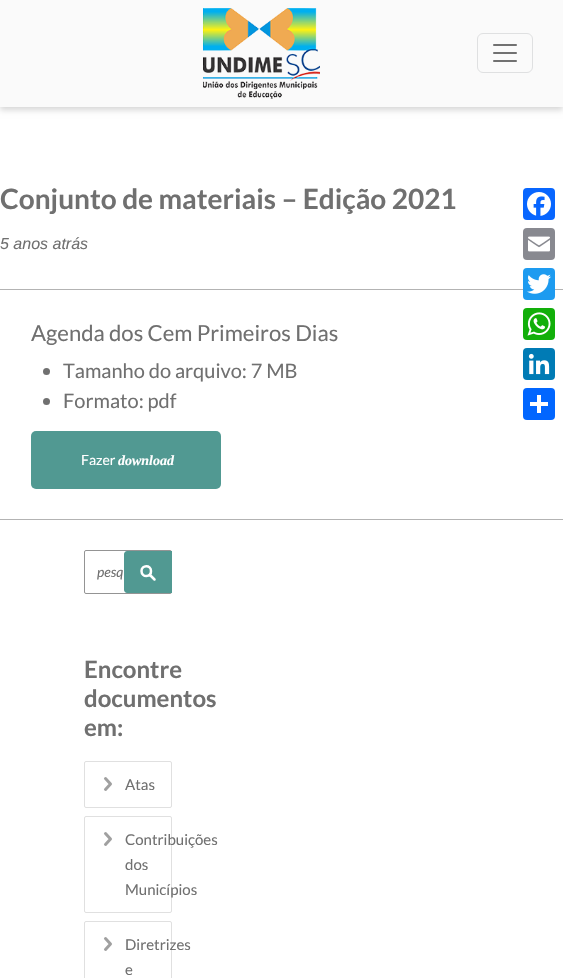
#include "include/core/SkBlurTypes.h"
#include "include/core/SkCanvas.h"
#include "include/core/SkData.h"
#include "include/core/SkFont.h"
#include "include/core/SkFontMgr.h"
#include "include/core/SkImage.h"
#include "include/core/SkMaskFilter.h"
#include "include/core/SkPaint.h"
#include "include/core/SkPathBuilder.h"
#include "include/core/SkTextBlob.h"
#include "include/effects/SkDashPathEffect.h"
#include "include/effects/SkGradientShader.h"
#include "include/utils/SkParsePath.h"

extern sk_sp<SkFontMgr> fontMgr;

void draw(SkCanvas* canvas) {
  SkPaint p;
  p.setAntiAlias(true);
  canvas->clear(SK_ColorWHITE);
  p.setColor(SkColorSetARGB(41, 0, 0, 0));
  p.setMaskFilter(SkMaskFilter::MakeBlur(kNormal_SkBlurStyle, 3));
  canvas->drawRect(SkRect::MakeLTRB(0, 3, 563, 110), p);
  p.setMaskFilter(nullptr);
  p.setColor(SkColorSetRGB(250, 250, 250));
  canvas->drawRect(SkRect::MakeLTRB(0, 0, 563, 107), p);
  canvas->drawImageRect(SkImages::DeferredFromEncodedData(SkData::MakeFromFileName("images/1.png")), SkRect::MakeLTRB(203, 8, 320, 99), SkSamplingOptions());
  p.setStyle(SkPaint::kStroke_Style);
  p.setStrokeWidth(1);
  p.setColor(SkColorSetRGB(223, 224, 225));
  canvas->drawRoundRect(SkRect::MakeLTRB(477.5f, 33.5f, 532.5f, 72.5f), 5.5f, 5.5f, p);
  canvas->drawImageRect(SkImages::DeferredFromEncodedData(SkData::MakeFromFileName("images/2.png")), SkRect::MakeLTRB(493, 44, 517, 62), SkSamplingOptions());
  p.setColor(SkColorSetRGB(179, 179, 179));
  canvas->drawRect(SkRect::MakeLTRB(-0.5f, 289.5f, 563.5f, 519.5f), p);
  p.setStyle(SkPaint::kFill_Style);
  p.setColor(SkColorSetRGB(112, 112, 112));
  canvas->drawCircle(46.5f, 371.5f, 3.5f, p);
  canvas->drawCircle(46.5f, 401.5f, 3.5f, p);
  p.setColor(SkColorSetRGB(81, 153, 146));
  canvas->drawRoundRect(SkRect::MakeLTRB(31, 431, 221, 489), 5, 5, p);
  p.setStyle(SkPaint::kStroke_Style);
  p.setColor(SkColorSetRGB(148, 148, 148));
  canvas->drawRoundRect(SkRect::MakeLTRB(84.5f, 550.5f, 171.5f, 593.5f), 1.5f, 1.5f, p);
  p.setStyle(SkPaint::kFill_Style);
  p.setColor(SkColorSetRGB(81, 153, 146));
  canvas->drawPath(SkPathBuilder().moveTo(127, 551).lineTo(172, 551).lineTo(172, 593).lineTo(127, 593).cubicTo(125.5f, 593, 124, 591.5f, 124, 590).lineTo(124, 554).cubicTo(124, 552.5f, 125.5f, 551, 127, 551).close().detach(), p);
  p.setStyle(SkPaint::kStroke_Style);
  p.setStrokeWidth(2.5f);
  p.setStrokeCap(SkPaint::kRound_Cap);
  p.setStrokeJoin(SkPaint::kRound_Join);
  p.setColor(SK_ColorWHITE);
  canvas->drawPath(SkPathBuilder().moveTo(150, 575).lineTo(154.5f, 579.5f).close().moveTo(141.5f, 571).cubicTo(141.5f, 565, 151, 564.5f, 151, 571).cubicTo(151.5f, 577.5f, 141.5f, 578, 141.5f, 571).close().detach(), p);
  p.setStrokeWidth(3);
  p.setColor(SkColorSetRGB(160, 160, 160));
  canvas->drawPath(SkPathBuilder().moveTo(110.5f, 784).lineTo(105.5f, 789.5f).close().moveTo(105.5f, 778.5f).lineTo(110.5f, 784).close().detach(), p);
  p.setStrokeWidth(1);
  p.setStrokeCap(SkPaint::kButt_Cap);
  p.setStrokeJoin(SkPaint::kMiter_Join);
  p.setColor(SkColorSetRGB(224, 224, 224));
  canvas->drawRoundRect(SkRect::MakeLTRB(84.5f, 761.5f, 171.5f, 807.5f), 1.5f, 1.5f, p);
  p.setStrokeWidth(3);
  p.setStrokeCap(SkPaint::kRound_Cap);
  p.setStrokeJoin(SkPaint::kRound_Join);
  p.setColor(SkColorSetRGB(160, 160, 160));
  canvas->drawPath(SkPathBuilder().moveTo(110.5f, 839).lineTo(105.5f, 844.5f).close().moveTo(105.5f, 833.5f).lineTo(110.5f, 839).close().detach(), p);
  p.setStrokeWidth(1);
  p.setStrokeCap(SkPaint::kButt_Cap);
  p.setStrokeJoin(SkPaint::kMiter_Join);
  p.setColor(SkColorSetRGB(224, 224, 224));
  canvas->drawRoundRect(SkRect::MakeLTRB(84.5f, 816.5f, 171.5f, 912.5f), 1.5f, 1.5f, p);
  p.setStrokeWidth(3);
  p.setStrokeCap(SkPaint::kRound_Cap);
  p.setStrokeJoin(SkPaint::kRound_Join);
  p.setColor(SkColorSetRGB(160, 160, 160));
  canvas->drawPath(SkPathBuilder().moveTo(110.5f, 944).lineTo(105.5f, 949.5f).close().moveTo(105.5f, 938.5f).lineTo(110.5f, 944).close().detach(), p);
  p.setStrokeWidth(1);
  p.setStrokeCap(SkPaint::kButt_Cap);
  p.setStrokeJoin(SkPaint::kMiter_Join);
  p.setColor(SkColorSetRGB(224, 224, 224));
  canvas->drawRoundRect(SkRect::MakeLTRB(84.5f, 921.5f, 171.5f, 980.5f), 1.5f, 1.5f, p);
  p.setStyle(SkPaint::kFill_Style);
  p.setColor(SkColorSetRGB(8, 102, 255));
  canvas->drawRoundRect(SkRect::MakeLTRB(523, 188, 555, 220), 4, 4, p);
  canvas->drawImageRect(SkImages::DeferredFromEncodedData(SkData::MakeFromFileName("images/3.png")), SkRect::MakeLTRB(527, 192, 551, 216), SkSamplingOptions());
  p.setColor(SkColorSetRGB(136, 137, 144));
  canvas->drawRoundRect(SkRect::MakeLTRB(523, 228, 555, 260), 4, 4, p);
  canvas->drawImageRect(SkImages::DeferredFromEncodedData(SkData::MakeFromFileName("images/4.png")), SkRect::MakeLTRB(528, 236, 550, 252), SkSamplingOptions());
  p.setColor(SkColorSetRGB(29, 155, 240));
  canvas->drawRoundRect(SkRect::MakeLTRB(523, 268, 555, 300), 4, 4, p);
  canvas->drawImageRect(SkImages::DeferredFromEncodedData(SkData::MakeFromFileName("images/5.png")), SkRect::MakeLTRB(527, 274, 551, 294), SkSamplingOptions());
  p.setColor(SkColorSetRGB(18, 175, 10));
  canvas->drawRoundRect(SkRect::MakeLTRB(523, 308, 555, 340), 4, 4, p);
  canvas->drawImageRect(SkImages::DeferredFromEncodedData(SkData::MakeFromFileName("images/6.png")), SkRect::MakeLTRB(527, 312, 551, 336), SkSamplingOptions());
  p.setColor(SkColorSetRGB(0, 123, 181));
  canvas->drawRoundRect(SkRect::MakeLTRB(523, 348, 555, 380), 4, 4, p);
  canvas->drawImageRect(SkImages::DeferredFromEncodedData(SkData::MakeFromFileName("images/7.png")), SkRect::MakeLTRB(528, 353, 550, 375), SkSamplingOptions());
  p.setColor(SkColorSetRGB(1, 102, 255));
  canvas->drawRoundRect(SkRect::MakeLTRB(523, 388, 555, 420), 4, 4, p);
  p.setColor(SK_ColorWHITE);
  canvas->drawRect(SkRect::MakeLTRB(537, 395, 541, 413), p);
  canvas->drawRect(SkRect::MakeLTRB(530, 402, 548, 406), p);
  SkFont font1(fontMgr->matchFamilyStyle("Lato", SkFontStyle::Bold()), 28);
  font1.setSubpixel(true);
  p.setColor(SkColorSetRGB(112, 112, 112));
  canvas->drawString("Conjunto de materiais – Edição 2021", 0, 209, font1, p);
  SkFont font2(fontMgr->matchFamilyStyle("Liberation Sans", SkFontStyle::Italic()), 16);
  font2.setSubpixel(true);
  canvas->drawString("5 anos atrás", 0, 249, font2, p);
  SkFont font3(fontMgr->matchFamilyStyle("Lato", SkFontStyle::Normal()), 22.1f);
  font3.setSubpixel(true);
  canvas->drawString("Agenda dos Cem Primeiros Dias", 31, 341, font3, p);
  SkFont font4(fontMgr->matchFamilyStyle("Lato", SkFontStyle::Normal()), 20);
  font4.setSubpixel(true);
  canvas->drawString("Tamanho do arquivo: 7 MB", 63, 378, font4, p);
  canvas->drawString("Formato: pdf", 63, 408, font4, p);
  SkFont font5(fontMgr->matchFamilyStyle("Lato", SkFontStyle::Normal()), 14);
  font5.setSubpixel(true);
  p.setColor(SK_ColorWHITE);
  canvas->drawString("Fazer", 81, 465, font5, p);
  SkFont font6(fontMgr->matchFamilyStyle("Liberation Serif", SkFontStyle::BoldItalic()), 14);
  font6.setSubpixel(true);
  canvas->drawString("download", 118, 465, font6, p);
  SkFont font7(fontMgr->matchFamilyStyle("Lato", SkFontStyle::Italic()), 14);
  font7.setSubpixel(true);
  p.setColor(SkColorSetRGB(112, 112, 112));
  canvas->drawString("pesq", 97, 577, font7, p);
  SkFont font8(fontMgr->matchFamilyStyle("Lato", SkFontStyle::Bold()), 24);
  font8.setSubpixel(true);
  canvas->drawString("Encontre", 84, 678, font8, p);
  canvas->drawString("documentos", 84, 707, font8, p);
  canvas->drawString("em:", 84, 736, font8, p);
  SkFont font9(fontMgr->matchFamilyStyle("Lato", SkFontStyle::Normal()), 15);
  font9.setSubpixel(true);
  canvas->drawString("Atas", 125, 790, font9, p);
  canvas->drawString("Contribuições", 125, 845, font9, p);
  canvas->drawString("dos", 125, 870, font9, p);
  canvas->drawString("Municípios", 125, 895, font9, p);
  canvas->drawString("Diretrizes", 125, 950, font9, p);
  canvas->drawString("e", 125, 975, font9, p);
}
